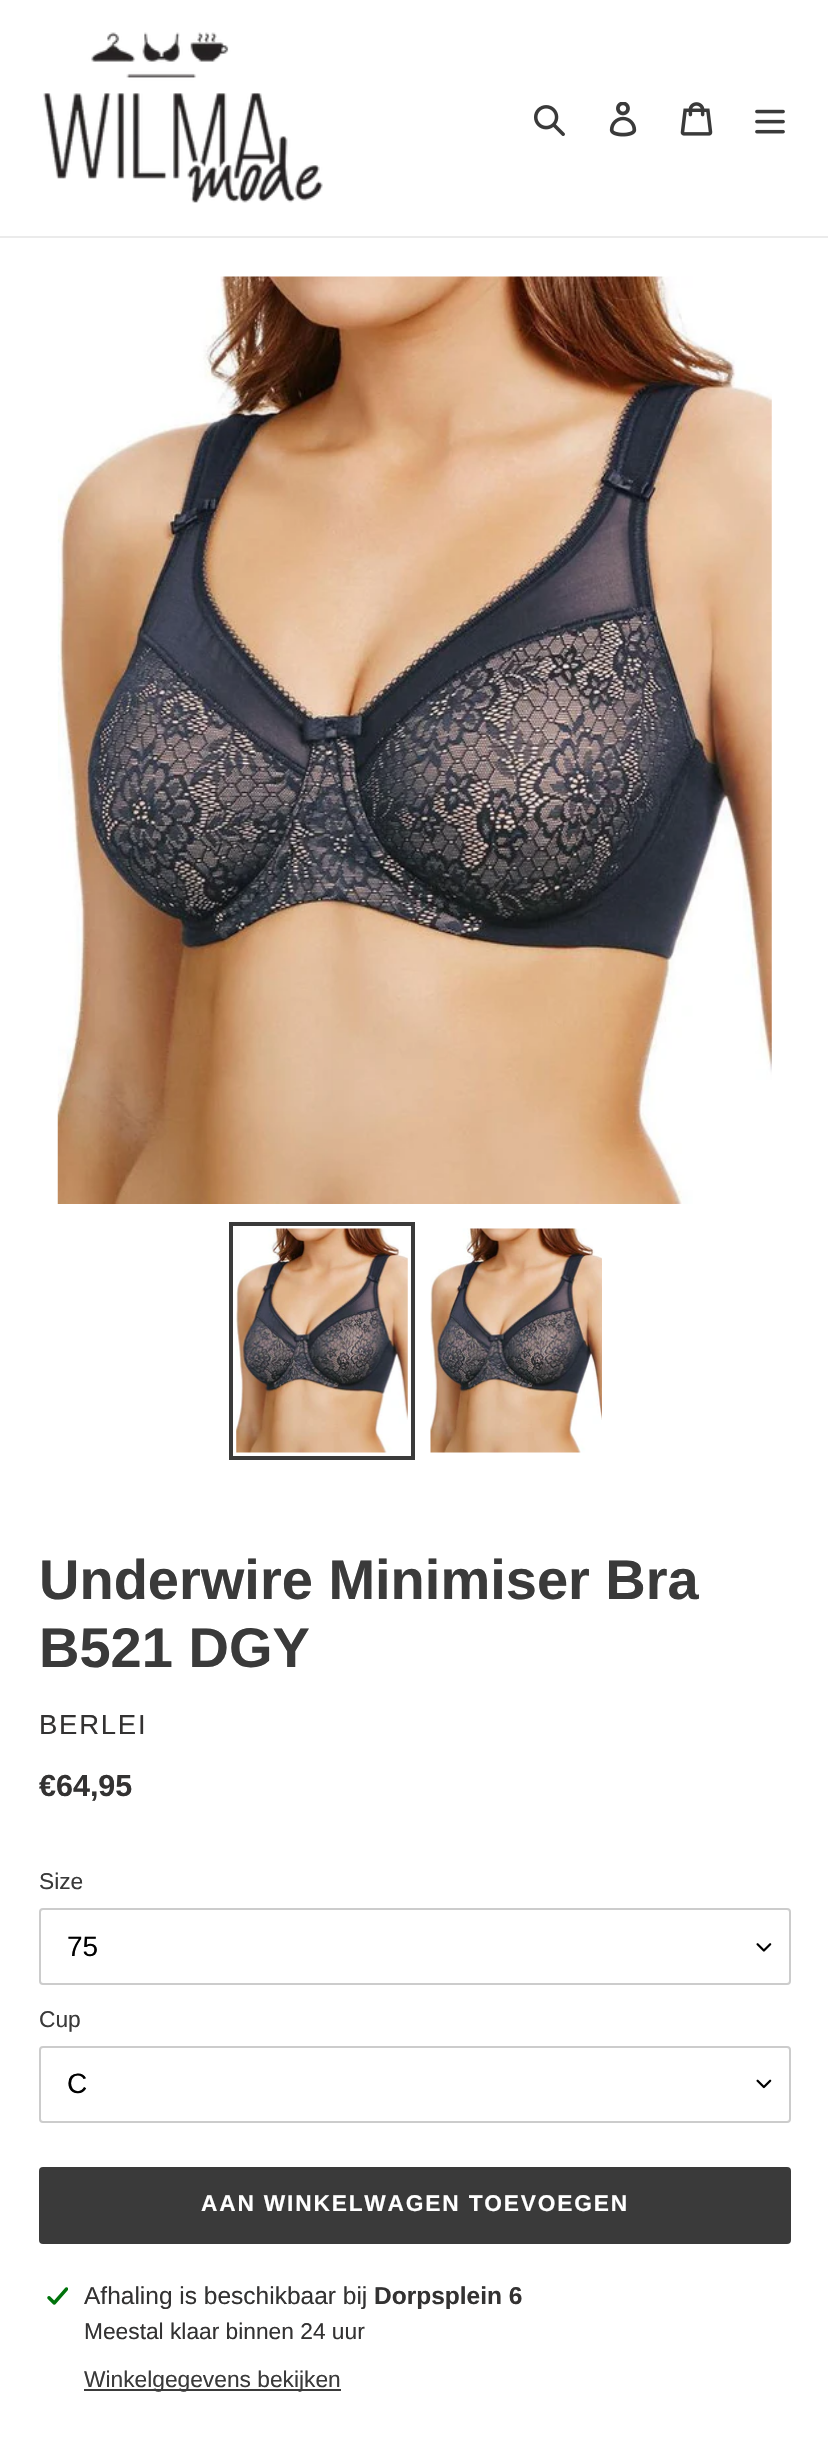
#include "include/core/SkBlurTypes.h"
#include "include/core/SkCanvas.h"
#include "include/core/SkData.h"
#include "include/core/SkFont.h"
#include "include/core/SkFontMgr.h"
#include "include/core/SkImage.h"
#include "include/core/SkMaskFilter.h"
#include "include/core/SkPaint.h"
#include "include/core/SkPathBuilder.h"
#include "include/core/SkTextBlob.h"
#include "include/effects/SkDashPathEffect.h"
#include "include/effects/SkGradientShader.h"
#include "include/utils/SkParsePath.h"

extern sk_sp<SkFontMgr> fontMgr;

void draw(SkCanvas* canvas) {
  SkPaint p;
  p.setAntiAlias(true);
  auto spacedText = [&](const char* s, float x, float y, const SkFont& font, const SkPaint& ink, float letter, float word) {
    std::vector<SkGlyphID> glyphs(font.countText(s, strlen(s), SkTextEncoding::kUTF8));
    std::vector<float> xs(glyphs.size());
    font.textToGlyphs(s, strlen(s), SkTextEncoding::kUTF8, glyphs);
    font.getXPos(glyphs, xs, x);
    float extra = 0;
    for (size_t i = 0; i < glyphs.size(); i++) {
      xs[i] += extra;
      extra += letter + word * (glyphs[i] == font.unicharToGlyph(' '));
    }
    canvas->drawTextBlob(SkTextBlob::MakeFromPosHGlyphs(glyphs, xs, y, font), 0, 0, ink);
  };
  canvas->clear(SK_ColorWHITE);
  p.setColor(SkColorSetRGB(235, 235, 235));
  canvas->drawRect(SkRect::MakeLTRB(0, 236, 828, 238), p);
  canvas->drawImageRect(SkImages::DeferredFromEncodedData(SkData::MakeFromFileName("images/1.png")), SkRect::MakeLTRB(43, 32, 323, 203), SkSamplingOptions());
  canvas->drawImageRect(SkImages::DeferredFromEncodedData(SkData::MakeFromFileName("images/2.png")), SkRect::MakeLTRB(534, 105, 565, 136), SkSamplingOptions());
  canvas->drawImageRect(SkImages::DeferredFromEncodedData(SkData::MakeFromFileName("images/3.png")), SkRect::MakeLTRB(609, 102, 637, 137), SkSamplingOptions());
  canvas->drawImageRect(SkImages::DeferredFromEncodedData(SkData::MakeFromFileName("images/4.png")), SkRect::MakeLTRB(680, 102, 713, 136), SkSamplingOptions());
  canvas->drawImageRect(SkImages::DeferredFromEncodedData(SkData::MakeFromFileName("images/5.png")), SkRect::MakeLTRB(755, 109, 785, 134), SkSamplingOptions());
  canvas->drawImageRect(SkImages::DeferredFromEncodedData(SkData::MakeFromFileName("images/6.png")), SkRect::MakeLTRB(57, 276, 772, 1204), SkSamplingOptions());
  p.setStyle(SkPaint::kStroke_Style);
  p.setStrokeWidth(4);
  p.setColor(SkColorSetRGB(58, 58, 58));
  canvas->drawRect(SkRect::MakeLTRB(231, 1224, 413, 1458), p);
  canvas->drawImageRect(SkImages::DeferredFromEncodedData(SkData::MakeFromFileName("images/7.png")), SkRect::MakeLTRB(236, 1228, 408, 1453), SkSamplingOptions());
  canvas->drawImageRect(SkImages::DeferredFromEncodedData(SkData::MakeFromFileName("images/8.png")), SkRect::MakeLTRB(430, 1228, 602, 1453), SkSamplingOptions());
  canvas->drawImageRect(SkImages::DeferredFromEncodedData(SkData::MakeFromFileName("images/9.png")), SkRect::MakeLTRB(756, 1943, 772, 1952), SkSamplingOptions());
  p.setStrokeWidth(2);
  p.setColor(SkColorSetRGB(204, 204, 204));
  canvas->drawRoundRect(SkRect::MakeLTRB(40, 1909, 790, 1984), 3, 3, p);
  canvas->drawImageRect(SkImages::DeferredFromEncodedData(SkData::MakeFromFileName("images/10.png")), SkRect::MakeLTRB(756, 2079, 772, 2089), SkSamplingOptions());
  canvas->drawRoundRect(SkRect::MakeLTRB(40, 2047, 790, 2122), 3, 3, p);
  p.setStyle(SkPaint::kFill_Style);
  p.setColor(SkColorSetRGB(58, 58, 58));
  canvas->drawRoundRect(SkRect::MakeLTRB(39, 2167, 791, 2244), 4, 4, p);
  canvas->drawImageRect(SkImages::DeferredFromEncodedData(SkData::MakeFromFileName("images/11.png")), SkRect::MakeLTRB(47, 2287, 68, 2305), SkSamplingOptions());
  canvas->drawRect(SkRect::MakeLTRB(84, 2389, 341, 2391), p);
  SkFont font1(fontMgr->matchFamilyStyle("Liberation Sans", SkFontStyle::Bold()), 56);
  font1.setSubpixel(true);
  canvas->drawString("Underwire Minimiser Bra", 39, 1599, font1, p);
  canvas->drawString("B521 DGY", 39, 1667, font1, p);
  SkFont font2(fontMgr->matchFamilyStyle("Liberation Sans", SkFontStyle::Normal()), 27.5f);
  font2.setSubpixel(true);
  p.setColor(SkColorSetRGB(51, 50, 50));
  spacedText("BERLEI", 39, 1734, font2, p, 1.75f, 0);
  SkFont font3(fontMgr->matchFamilyStyle("Liberation Sans", SkFontStyle::Bold()), 30.5f);
  font3.setSubpixel(true);
  canvas->drawString("€64,95", 39, 1796, font3, p);
  SkFont font4(fontMgr->matchFamilyStyle("Liberation Sans", SkFontStyle::Normal()), 22.75f);
  font4.setSubpixel(true);
  p.setColor(SkColorSetRGB(58, 58, 58));
  canvas->drawString("Size", 39, 1889, font4, p);
  SkFont font5(fontMgr->matchFamilyStyle("Liberation Sans", SkFontStyle::Normal()), 28);
  font5.setSubpixel(true);
  p.setColor(SK_ColorBLACK);
  canvas->drawString("75", 67, 1956, font5, p);
  p.setColor(SkColorSetRGB(58, 58, 58));
  canvas->drawString("Cup", 39, 2027, font4, p);
  p.setColor(SK_ColorBLACK);
  canvas->drawString("C", 67, 2093, font5, p);
  SkFont font6(fontMgr->matchFamilyStyle("Liberation Sans", SkFontStyle::Bold()), 22.75f);
  font6.setSubpixel(true);
  p.setColor(SK_ColorWHITE);
  spacedText("AAN WINKELWAGEN TOEVOEGEN", 201, 2211, font6, p, 1.8f, 0);
  SkFont font7(fontMgr->matchFamilyStyle("Liberation Sans", SkFontStyle::Normal()), 24.5f);
  font7.setSubpixel(true);
  p.setColor(SkColorSetRGB(51, 50, 50));
  canvas->drawString("Afhaling is beschikbaar bij", 84, 2304, font7, p);
  SkFont font8(fontMgr->matchFamilyStyle("Liberation Sans", SkFontStyle::Bold()), 24.5f);
  font8.setSubpixel(true);
  canvas->drawString("Dorpsplein 6", 374, 2304, font8, p);
  canvas->drawString("Meestal klaar binnen 24 uur", 84, 2339, font4, p);
  p.setColor(SkColorSetRGB(58, 58, 58));
  canvas->drawString("Winkelgegevens bekijken", 84, 2387, font4, p);
}
